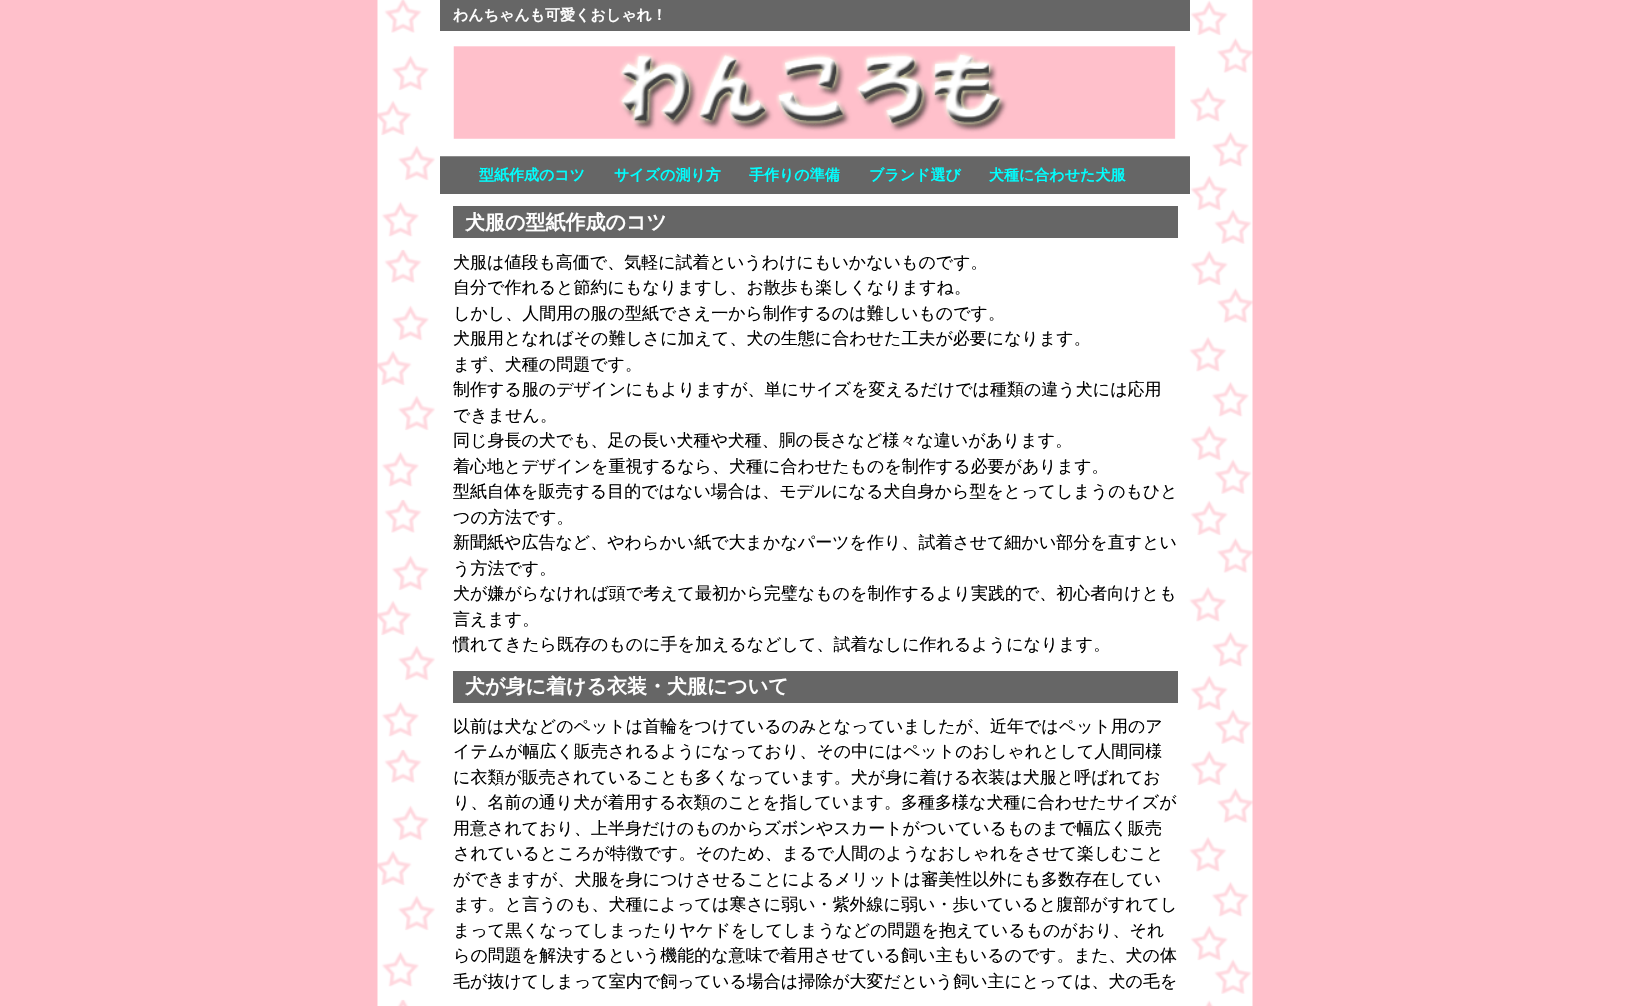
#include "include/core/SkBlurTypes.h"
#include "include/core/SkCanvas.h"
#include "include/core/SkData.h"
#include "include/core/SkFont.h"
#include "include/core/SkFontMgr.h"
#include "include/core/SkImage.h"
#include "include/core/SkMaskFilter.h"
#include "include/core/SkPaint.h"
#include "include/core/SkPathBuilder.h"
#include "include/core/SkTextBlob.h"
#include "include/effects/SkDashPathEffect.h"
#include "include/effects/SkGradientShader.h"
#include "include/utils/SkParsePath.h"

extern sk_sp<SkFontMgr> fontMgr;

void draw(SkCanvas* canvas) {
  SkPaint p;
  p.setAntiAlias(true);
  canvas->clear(SkColorSetRGB(255, 192, 203));
  canvas->drawImageRect(SkImages::DeferredFromEncodedData(SkData::MakeFromFileName("images/1.png")), SkRect::MakeLTRB(377, 0, 1253, 1006), SkSamplingOptions());
  p.setColor(SkColorSetRGB(102, 102, 102));
  canvas->drawRect(SkRect::MakeLTRB(440, 0, 1190, 31), p);
  canvas->drawRect(SkRect::MakeLTRB(440, 156, 1190, 194), p);
  canvas->drawImageRect(SkImages::DeferredFromEncodedData(SkData::MakeFromFileName("images/2.png")), SkRect::MakeLTRB(440, 46, 1190, 157), SkSamplingOptions());
  canvas->drawRect(SkRect::MakeLTRB(453, 206, 1178, 238), p);
  canvas->drawRect(SkRect::MakeLTRB(453, 671, 1178, 703), p);
  SkFont font1(fontMgr->matchFamilyStyle("WenQuanYi Zen Hei", SkFontStyle::Bold()), 15);
  font1.setSubpixel(true);
  p.setColor(SK_ColorWHITE);
  canvas->drawString("わんちゃんも可愛くおしゃれ！", 453, 20, font1, p);
  p.setColor(SkColorSetRGB(0, 255, 255));
  canvas->drawString("型紙作成のコツ", 479, 180, font1, p);
  canvas->drawString("サイズの測り方", 614, 180, font1, p);
  canvas->drawString("手作りの準備", 749, 180, font1, p);
  canvas->drawString("ブランド選び", 869, 180, font1, p);
  canvas->drawString("犬種に合わせた犬服", 989, 180, font1, p);
  SkFont font2(fontMgr->matchFamilyStyle("WenQuanYi Zen Hei", SkFontStyle::Bold()), 20);
  font2.setSubpixel(true);
  p.setColor(SK_ColorWHITE);
  canvas->drawString("犬服の型紙作成のコツ", 465, 229, font2, p);
  SkFont font3(fontMgr->matchFamilyStyle("WenQuanYi Zen Hei", SkFontStyle(500, SkFontStyle::kNormal_Width, SkFontStyle::kUpright_Slant)), 17);
  font3.setSubpixel(true);
  p.setColor(SK_ColorBLACK);
  canvas->drawString("犬服は値段も高価で、気軽に試着というわけにもいかないものです。", 453, 268, font3, p);
  canvas->drawString("自分で作れると節約にもなりますし、お散歩も楽しくなりますね。", 453, 293, font3, p);
  canvas->drawString("しかし、人間用の服の型紙でさえ一から制作するのは難しいものです。", 453, 319, font3, p);
  canvas->drawString("犬服用となればその難しさに加えて、犬の生態に合わせた工夫が必要になります。", 453, 344, font3, p);
  canvas->drawString("まず、犬種の問題です。", 453, 370, font3, p);
  canvas->drawString("制作する服のデザインにもよりますが、単にサイズを変えるだけでは種類の違う犬には応用", 453, 395, font3, p);
  canvas->drawString("できません。", 453, 421, font3, p);
  canvas->drawString("同じ身長の犬でも、足の長い犬種や犬種、胴の長さなど様々な違いがあります。", 453, 446, font3, p);
  canvas->drawString("着心地とデザインを重視するなら、犬種に合わせたものを制作する必要があります。", 453, 472, font3, p);
  canvas->drawString("型紙自体を販売する目的ではない場合は、モデルになる犬自身から型をとってしまうのもひと", 453, 497, font3, p);
  canvas->drawString("つの方法です。", 453, 523, font3, p);
  canvas->drawString("新聞紙や広告など、やわらかい紙で大まかなパーツを作り、試着させて細かい部分を直すとい", 453, 548, font3, p);
  canvas->drawString("う方法です。", 453, 574, font3, p);
  canvas->drawString("犬が嫌がらなければ頭で考えて最初から完璧なものを制作するより実践的で、初心者向けとも", 453, 599, font3, p);
  canvas->drawString("言えます。", 453, 625, font3, p);
  canvas->drawString("慣れてきたら既存のものに手を加えるなどして、試着なしに作れるようになります。", 453, 650, font3, p);
  p.setColor(SK_ColorWHITE);
  canvas->drawString("犬が身に着ける衣装・犬服について", 465, 693, font2, p);
  p.setColor(SK_ColorBLACK);
  canvas->drawString("以前は犬などのペットは首輪をつけているのみとなっていましたが、近年ではペット用のア", 453, 732, font3, p);
  canvas->drawString("イテムが幅広く販売されるようになっており、その中にはペットのおしゃれとして人間同様", 453, 757, font3, p);
  canvas->drawString("に衣類が販売されていることも多くなっています。犬が身に着ける衣装は犬服と呼ばれてお", 453, 783, font3, p);
  canvas->drawString("り、名前の通り犬が着用する衣類のことを指しています。多種多様な犬種に合わせたサイズが", 453, 808, font3, p);
  canvas->drawString("用意されており、上半身だけのものからズボンやスカートがついているものまで幅広く販売", 453, 834, font3, p);
  canvas->drawString("されているところが特徴です。そのため、まるで人間のようなおしゃれをさせて楽しむこと", 453, 859, font3, p);
  canvas->drawString("ができますが、犬服を身につけさせることによるメリットは審美性以外にも多数存在してい", 453, 885, font3, p);
  canvas->drawString("ます。と言うのも、犬種によっては寒さに弱い・紫外線に弱い・歩いていると腹部がすれてし", 453, 910, font3, p);
  canvas->drawString("まって黒くなってしまったりヤケドをしてしまうなどの問題を抱えているものがおり、それ", 453, 936, font3, p);
  canvas->drawString("らの問題を解決するという機能的な意味で着用させている飼い主もいるのです。また、犬の体", 453, 961, font3, p);
  canvas->drawString("毛が抜けてしまって室内で飼っている場合は掃除が大変だという飼い主にとっては、犬の毛を", 453, 987, font3, p);
}
